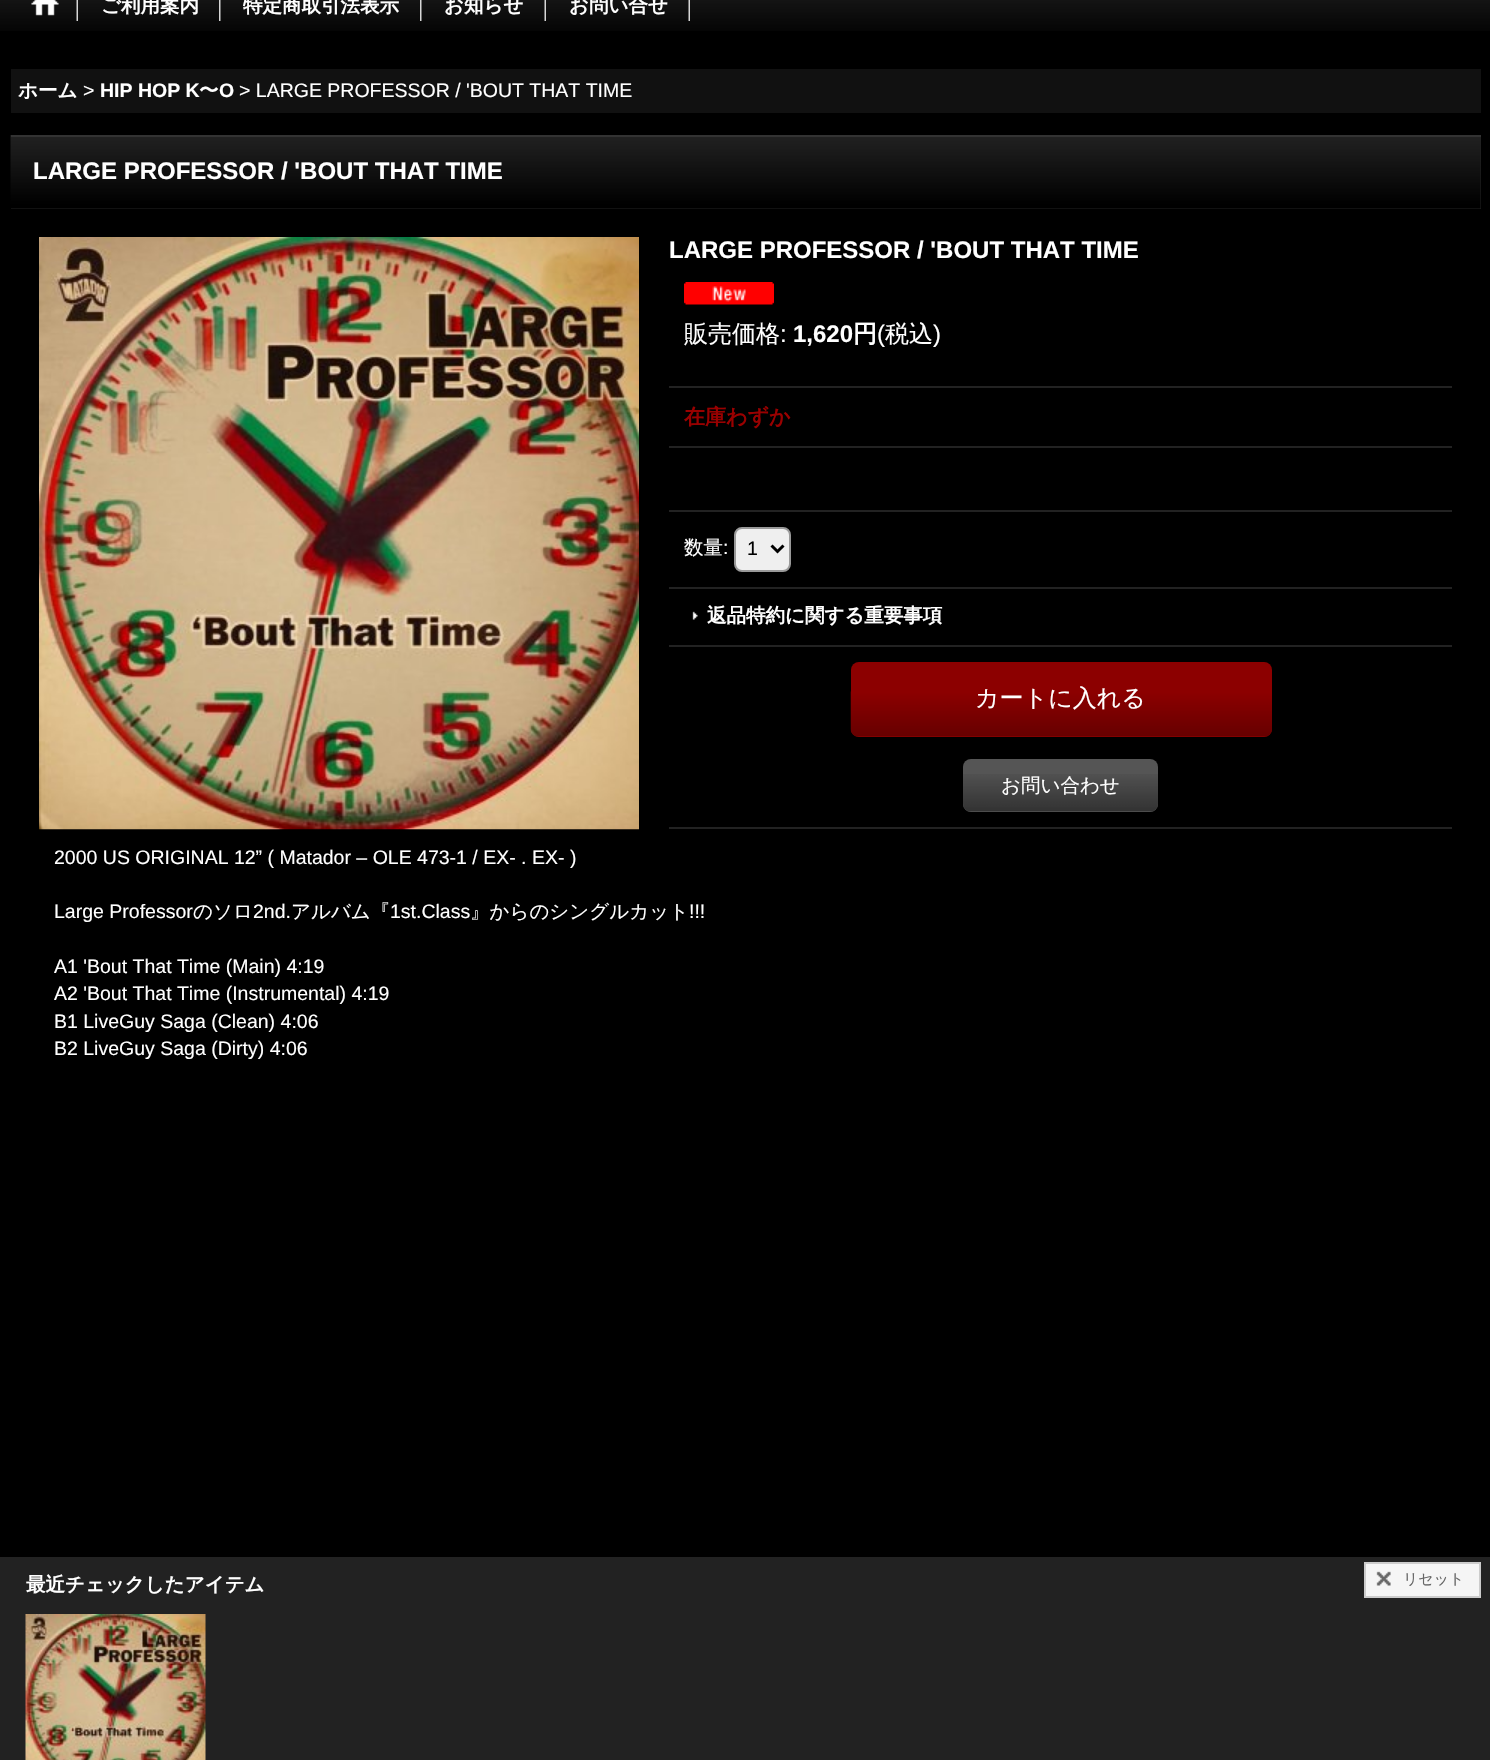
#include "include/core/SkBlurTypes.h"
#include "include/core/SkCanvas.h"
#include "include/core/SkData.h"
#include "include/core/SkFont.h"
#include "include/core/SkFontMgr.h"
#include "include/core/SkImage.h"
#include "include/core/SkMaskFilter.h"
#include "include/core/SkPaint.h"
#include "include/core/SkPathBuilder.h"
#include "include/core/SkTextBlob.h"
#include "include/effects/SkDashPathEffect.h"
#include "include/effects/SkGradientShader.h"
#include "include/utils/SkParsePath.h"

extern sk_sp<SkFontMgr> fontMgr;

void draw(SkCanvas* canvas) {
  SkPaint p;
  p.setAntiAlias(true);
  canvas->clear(SK_ColorBLACK);
  canvas->drawImageRect(SkImages::DeferredFromEncodedData(SkData::MakeFromFileName("images/1.png")), SkRect::MakeLTRB(0, 0, 1490, 31), SkSamplingOptions());
  canvas->drawImageRect(SkImages::DeferredFromEncodedData(SkData::MakeFromFileName("images/2.png")), SkRect::MakeLTRB(76, 0, 78, 21), SkSamplingOptions());
  canvas->drawImageRect(SkImages::DeferredFromEncodedData(SkData::MakeFromFileName("images/3.png")), SkRect::MakeLTRB(31, 0, 59, 16), SkSamplingOptions());
  canvas->drawImageRect(SkImages::DeferredFromEncodedData(SkData::MakeFromFileName("images/4.png")), SkRect::MakeLTRB(219, 0, 221, 21), SkSamplingOptions());
  canvas->drawImageRect(SkImages::DeferredFromEncodedData(SkData::MakeFromFileName("images/4.png")), SkRect::MakeLTRB(420, 0, 422, 21), SkSamplingOptions());
  canvas->drawImageRect(SkImages::DeferredFromEncodedData(SkData::MakeFromFileName("images/2.png")), SkRect::MakeLTRB(544, 0, 546, 21), SkSamplingOptions());
  canvas->drawImageRect(SkImages::DeferredFromEncodedData(SkData::MakeFromFileName("images/2.png")), SkRect::MakeLTRB(688, 0, 690, 21), SkSamplingOptions());
  p.setColor(SkColorSetRGB(17, 17, 17));
  canvas->drawRect(SkRect::MakeLTRB(11, 69, 1481, 113), p);
  p.setColor(SkColorSetRGB(34, 34, 34));
  canvas->drawRect(SkRect::MakeLTRB(11, 137, 1481, 209), p);
  canvas->drawImageRect(SkImages::DeferredFromEncodedData(SkData::MakeFromFileName("images/5.png")), SkRect::MakeLTRB(10, 135, 1481, 209), SkSamplingOptions());
  p.setColor(SkColorSetRGB(51, 51, 51));
  canvas->drawRect(SkRect::MakeLTRB(11, 135, 1481, 137), p);
  canvas->drawImageRect(SkImages::DeferredFromEncodedData(SkData::MakeFromFileName("images/6.png")), SkRect::MakeLTRB(39, 237, 639, 830), SkSamplingOptions());
  canvas->drawImageRect(SkImages::DeferredFromEncodedData(SkData::MakeFromFileName("images/7.png")), SkRect::MakeLTRB(684, 282, 774, 305), SkSamplingOptions());
  p.setColor(SkColorSetRGB(34, 34, 34));
  canvas->drawRect(SkRect::MakeLTRB(669, 386, 1452, 388), p);
  canvas->drawRect(SkRect::MakeLTRB(669, 446, 1452, 448), p);
  canvas->drawRect(SkRect::MakeLTRB(669, 510, 1452, 512), p);
  canvas->drawRect(SkRect::MakeLTRB(669, 587, 1452, 589), p);
  p.setColor(SkColorSetRGB(239, 239, 239));
  canvas->drawRoundRect(SkRect::MakeLTRB(735, 528, 790, 571), 7, 7, p);
  p.setStyle(SkPaint::kStroke_Style);
  p.setStrokeWidth(2);
  p.setColor(SkColorSetRGB(153, 153, 153));
  canvas->drawRoundRect(SkRect::MakeLTRB(735, 528, 790, 571), 7, 7, p);
  p.setStrokeWidth(3);
  p.setColor(SK_ColorBLACK);
  canvas->drawPath(SkPathBuilder().moveTo(771.5f, 545.5f).lineTo(777.5f, 551.5f).lineTo(783.5f, 545.5f).detach(), p);
  p.setStyle(SkPaint::kFill_Style);
  p.setColor(SkColorSetRGB(34, 34, 34));
  canvas->drawRect(SkRect::MakeLTRB(669, 645, 1452, 647), p);
  canvas->drawImageRect(SkImages::DeferredFromEncodedData(SkData::MakeFromFileName("images/8.png")), SkRect::MakeLTRB(692, 611, 698, 620), SkSamplingOptions());
  canvas->drawRect(SkRect::MakeLTRB(669, 827, 1452, 829), p);
  p.setColor(SkColorSetRGB(140, 0, 0));
  canvas->drawRoundRect(SkRect::MakeLTRB(851, 662, 1272, 737), 8, 8, p);
  canvas->drawImageRect(SkImages::DeferredFromEncodedData(SkData::MakeFromFileName("images/9.png")), SkRect::MakeLTRB(850, 691, 1272, 737), SkSamplingOptions());
  p.setColor(SkColorSetRGB(85, 85, 85));
  canvas->drawRoundRect(SkRect::MakeLTRB(963, 759, 1158, 812), 8, 8, p);
  canvas->drawImageRect(SkImages::DeferredFromEncodedData(SkData::MakeFromFileName("images/10.png")), SkRect::MakeLTRB(963, 774, 1158, 812), SkSamplingOptions());
  p.setColor(SkColorSetRGB(34, 34, 34));
  canvas->drawRect(SkRect::MakeLTRB(0, 1557, 1490, 1760), p);
  p.setColor(SkColorSetRGB(245, 245, 245));
  canvas->drawRect(SkRect::MakeLTRB(1366, 1564, 1479, 1596), p);
  canvas->drawImageRect(SkImages::DeferredFromEncodedData(SkData::MakeFromFileName("images/11.png")), SkRect::MakeLTRB(1376, 1571, 1391, 1586), SkSamplingOptions());
  p.setStyle(SkPaint::kStroke_Style);
  p.setStrokeWidth(2);
  p.setColor(SkColorSetRGB(204, 204, 204));
  canvas->drawRect(SkRect::MakeLTRB(1365, 1563, 1480, 1597), p);
  canvas->drawImageRect(SkImages::DeferredFromEncodedData(SkData::MakeFromFileName("images/12.png")), SkRect::MakeLTRB(25, 1614, 206, 1760), SkSamplingOptions());
  SkFont font1(fontMgr->matchFamilyStyle("WenQuanYi Zen Hei", SkFontStyle::Bold()), 19.5f);
  font1.setSubpixel(true);
  p.setStyle(SkPaint::kFill_Style);
  p.setColor(SK_ColorWHITE);
  canvas->drawString("ご利用案内", 101, 12, font1, p);
  canvas->drawString("特定商取引法表示", 243, 12, font1, p);
  canvas->drawString("お知らせ", 444, 12, font1, p);
  canvas->drawString("お問い合せ", 569, 12, font1, p);
  canvas->drawString("ホーム", 18, 97, font1, p);
  SkFont font2(fontMgr->matchFamilyStyle("Liberation Sans", SkFontStyle::Normal()), 19.5f);
  font2.setSubpixel(true);
  canvas->drawString(">", 83, 97, font2, p);
  SkFont font3(fontMgr->matchFamilyStyle("Liberation Sans", SkFontStyle::Bold()), 19.5f);
  font3.setSubpixel(true);
  canvas->drawString("HIP HOP K", 100, 97, font3, p);
  canvas->drawString("〜", 199, 97, font1, p);
  canvas->drawString("O", 219, 97, font3, p);
  canvas->drawString("> LARGE PROFESSOR / 'BOUT THAT TIME", 239, 97, font2, p);
  SkFont font4(fontMgr->matchFamilyStyle("Liberation Sans", SkFontStyle::Bold()), 24);
  font4.setSubpixel(true);
  canvas->drawString("LARGE PROFESSOR / 'BOUT THAT TIME", 33, 179, font4, p);
  canvas->drawString("LARGE PROFESSOR / 'BOUT THAT TIME", 669, 258, font4, p);
  SkFont font5(fontMgr->matchFamilyStyle("WenQuanYi Zen Hei", SkFontStyle(500, SkFontStyle::kNormal_Width, SkFontStyle::kUpright_Slant)), 24);
  font5.setSubpixel(true);
  canvas->drawString("販売価格", 684, 342, font5, p);
  SkFont font6(fontMgr->matchFamilyStyle("Liberation Sans", SkFontStyle::Normal()), 24);
  font6.setSubpixel(true);
  canvas->drawString(":", 780, 342, font6, p);
  canvas->drawString("1,620", 793, 342, font4, p);
  SkFont font7(fontMgr->matchFamilyStyle("WenQuanYi Zen Hei", SkFontStyle::Bold()), 24);
  font7.setSubpixel(true);
  canvas->drawString("円", 853, 342, font7, p);
  canvas->drawString("(", 877, 342, font6, p);
  canvas->drawString("税込", 885, 342, font5, p);
  canvas->drawString(")", 933, 342, font6, p);
  SkFont font8(fontMgr->matchFamilyStyle("WenQuanYi Zen Hei", SkFontStyle::Bold()), 21);
  font8.setSubpixel(true);
  p.setColor(SkColorSetRGB(153, 0, 0));
  canvas->drawString("在庫わずか", 684, 424, font8, p);
  SkFont font9(fontMgr->matchFamilyStyle("WenQuanYi Zen Hei", SkFontStyle(500, SkFontStyle::kNormal_Width, SkFontStyle::kUpright_Slant)), 19.5f);
  font9.setSubpixel(true);
  p.setColor(SK_ColorWHITE);
  canvas->drawString("数量", 684, 554, font9, p);
  canvas->drawString(":", 723, 554, font2, p);
  p.setColor(SK_ColorBLACK);
  canvas->drawString("1", 747, 555, font2, p);
  p.setColor(SK_ColorWHITE);
  canvas->drawString("返品特約に関する重要事項", 707, 622, font1, p);
  canvas->drawString("カートに入れる", 975, 706, font5, p);
  canvas->drawString("お問い合わせ", 1001, 792, font9, p);
  canvas->drawString("2000 US ORIGINAL 12” ( Matador – OLE 473-1 / EX- . EX- )", 54, 864, font2, p);
  canvas->drawString("Large Professor", 54, 918, font2, p);
  canvas->drawString("のソロ", 193, 918, font9, p);
  canvas->drawString("2nd.", 253, 918, font2, p);
  canvas->drawString("アルバム『", 291, 918, font9, p);
  canvas->drawString("1st.Class", 390, 918, font2, p);
  canvas->drawString("』からのシングルカット", 470, 918, font9, p);
  canvas->drawString("!!!", 689, 918, font2, p);
  canvas->drawString("A1 'Bout That Time (Main) 4:19", 54, 973, font2, p);
  canvas->drawString("A2 'Bout That Time (Instrumental) 4:19", 54, 1000, font2, p);
  canvas->drawString("B1 LiveGuy Saga (Clean) 4:06", 54, 1028, font2, p);
  canvas->drawString("B2 LiveGuy Saga (Dirty) 4:06", 54, 1055, font2, p);
  canvas->drawString("最近チェックしたアイテム", 26, 1591, font1, p);
  SkFont font10(fontMgr->matchFamilyStyle("WenQuanYi Zen Hei", SkFontStyle(500, SkFontStyle::kNormal_Width, SkFontStyle::kUpright_Slant)), 15);
  font10.setSubpixel(true);
  p.setColor(SkColorSetRGB(102, 102, 102));
  canvas->drawString("リセット", 1403, 1584, font10, p);
}
